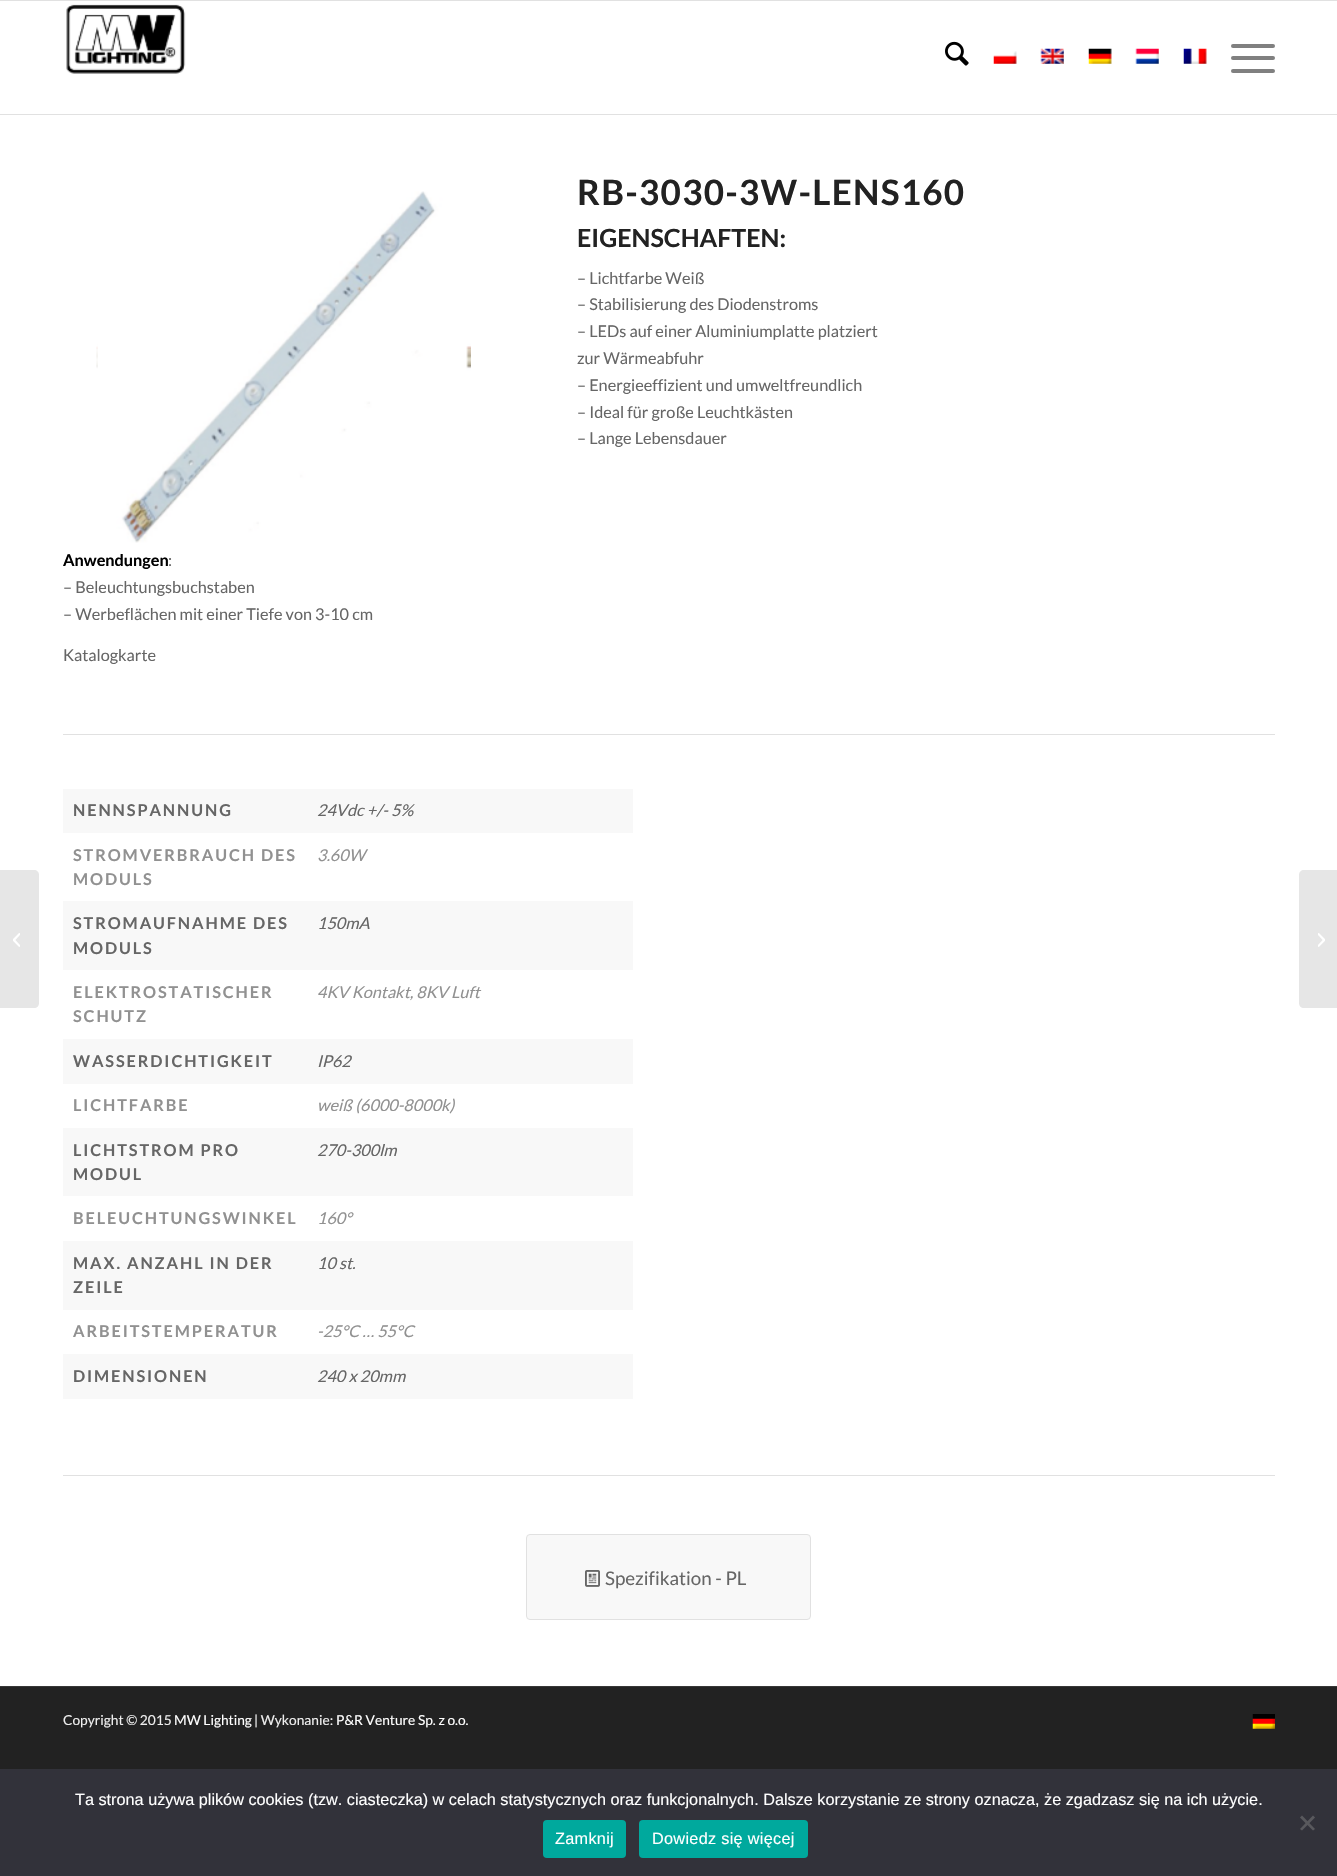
#include "include/core/SkBlurTypes.h"
#include "include/core/SkCanvas.h"
#include "include/core/SkData.h"
#include "include/core/SkFont.h"
#include "include/core/SkFontMgr.h"
#include "include/core/SkImage.h"
#include "include/core/SkMaskFilter.h"
#include "include/core/SkPaint.h"
#include "include/core/SkPathBuilder.h"
#include "include/core/SkTextBlob.h"
#include "include/effects/SkDashPathEffect.h"
#include "include/effects/SkGradientShader.h"
#include "include/utils/SkParsePath.h"

extern sk_sp<SkFontMgr> fontMgr;

void draw(SkCanvas* canvas) {
  SkPaint p;
  p.setAntiAlias(true);
  auto spacedText = [&](const char* s, float x, float y, const SkFont& font, const SkPaint& ink, float letter, float word) {
    std::vector<SkGlyphID> glyphs(font.countText(s, strlen(s), SkTextEncoding::kUTF8));
    std::vector<float> xs(glyphs.size());
    font.textToGlyphs(s, strlen(s), SkTextEncoding::kUTF8, glyphs);
    font.getXPos(glyphs, xs, x);
    float extra = 0;
    for (size_t i = 0; i < glyphs.size(); i++) {
      xs[i] += extra;
      extra += letter + word * (glyphs[i] == font.unicharToGlyph(' '));
    }
    canvas->drawTextBlob(SkTextBlob::MakeFromPosHGlyphs(glyphs, xs, y, font), 0, 0, ink);
  };
  canvas->clear(SkColorSetRGB(34, 34, 34));
  p.setColor(SK_ColorWHITE);
  canvas->drawRect(SkRect::MakeLTRB(0, 1, 1337, 1686), p);
  p.setColor(SkColorSetRGB(225, 225, 225));
  canvas->drawRect(SkRect::MakeLTRB(0, 0, 1337, 1), p);
  canvas->drawRect(SkRect::MakeLTRB(0, 114, 1337, 115), p);
  canvas->drawImageRect(SkImages::DeferredFromEncodedData(SkData::MakeFromFileName("images/1.png")), SkRect::MakeLTRB(66, 4, 186, 74), SkSamplingOptions());
  canvas->drawImageRect(SkImages::DeferredFromEncodedData(SkData::MakeFromFileName("images/2.png")), SkRect::MakeLTRB(945, 41, 969, 66), SkSamplingOptions());
  canvas->drawImageRect(SkImages::DeferredFromEncodedData(SkData::MakeFromFileName("images/3.png")), SkRect::MakeLTRB(993, 51, 1017, 64), SkSamplingOptions());
  canvas->drawImageRect(SkImages::DeferredFromEncodedData(SkData::MakeFromFileName("images/4.png")), SkRect::MakeLTRB(1040, 48, 1064, 64), SkSamplingOptions());
  canvas->drawImageRect(SkImages::DeferredFromEncodedData(SkData::MakeFromFileName("images/5.png")), SkRect::MakeLTRB(1088, 48, 1112, 64), SkSamplingOptions());
  canvas->drawImageRect(SkImages::DeferredFromEncodedData(SkData::MakeFromFileName("images/6.png")), SkRect::MakeLTRB(1135, 48, 1159, 64), SkSamplingOptions());
  canvas->drawImageRect(SkImages::DeferredFromEncodedData(SkData::MakeFromFileName("images/7.png")), SkRect::MakeLTRB(1183, 48, 1207, 64), SkSamplingOptions());
  p.setColor(SkColorSetRGB(128, 128, 128));
  canvas->drawRoundRect(SkRect::MakeLTRB(1231, 56, 1275, 60), 2, 2, p);
  canvas->drawRoundRect(SkRect::MakeLTRB(1231, 44, 1275, 48), 2, 2, p);
  canvas->drawRoundRect(SkRect::MakeLTRB(1231, 69, 1275, 73), 2, 2, p);
  p.setColor(SkColorSetRGB(230, 230, 230));
  canvas->drawPath(SkPathBuilder().moveTo(0, 870).lineTo(34, 870).cubicTo(37, 870, 39, 872, 39, 875).lineTo(39, 1003).cubicTo(39, 1006, 37, 1008, 34, 1008).lineTo(0, 1008).close().detach(), p);
  canvas->drawImageRect(SkImages::DeferredFromEncodedData(SkData::MakeFromFileName("images/8.png")), SkRect::MakeLTRB(13, 933, 20, 947), SkSamplingOptions());
  canvas->drawImageRect(SkImages::DeferredFromEncodedData(SkData::MakeFromFileName("images/9.png")), SkRect::MakeLTRB(96, 191, 471, 543), SkSamplingOptions());
  p.setColor(SkColorSetRGB(225, 225, 225));
  canvas->drawRect(SkRect::MakeLTRB(63, 734, 1275, 735), p);
  p.setColor(SkColorSetRGB(248, 248, 248));
  canvas->drawRect(SkRect::MakeLTRB(63, 789, 633, 1399), p);
  p.setColor(SK_ColorWHITE);
  canvas->drawRect(SkRect::MakeLTRB(63, 833, 633, 901), p);
  canvas->drawRect(SkRect::MakeLTRB(63, 970, 633, 1039), p);
  canvas->drawRect(SkRect::MakeLTRB(63, 1084, 633, 1128), p);
  canvas->drawRect(SkRect::MakeLTRB(63, 1196, 633, 1241), p);
  canvas->drawRect(SkRect::MakeLTRB(63, 1310, 633, 1354), p);
  p.setColor(SkColorSetRGB(225, 225, 225));
  canvas->drawRect(SkRect::MakeLTRB(63, 1475, 1275, 1476), p);
  p.setColor(SkColorSetRGB(248, 248, 248));
  canvas->drawRoundRect(SkRect::MakeLTRB(526.5f, 1534.5f, 810.5f, 1619.5f), 3.5f, 3.5f, p);
  p.setStyle(SkPaint::kStroke_Style);
  p.setStrokeWidth(1);
  p.setColor(SkColorSetRGB(225, 225, 225));
  canvas->drawRoundRect(SkRect::MakeLTRB(526.5f, 1534.5f, 810.5f, 1619.5f), 3.5f, 3.5f, p);
  canvas->drawImageRect(SkImages::DeferredFromEncodedData(SkData::MakeFromFileName("images/10.png")), SkRect::MakeLTRB(585, 1570, 600, 1587), SkSamplingOptions());
  p.setStyle(SkPaint::kFill_Style);
  p.setColor(SkColorSetRGB(55, 55, 55));
  canvas->drawRect(SkRect::MakeLTRB(0, 1686, 1337, 1687), p);
  canvas->drawImageRect(SkImages::DeferredFromEncodedData(SkData::MakeFromFileName("images/11.png")), SkRect::MakeLTRB(1252, 1714, 1275, 1729), SkSamplingOptions());
  p.setColor(SkColorSetRGB(230, 230, 230));
  canvas->drawPath(SkPathBuilder().moveTo(1304, 870).lineTo(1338, 870).lineTo(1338, 1008).lineTo(1304, 1008).cubicTo(1301, 1008, 1299, 1006, 1299, 1003).lineTo(1299, 875).cubicTo(1299, 872, 1301, 870, 1304, 870).close().detach(), p);
  canvas->drawImageRect(SkImages::DeferredFromEncodedData(SkData::MakeFromFileName("images/12.png")), SkRect::MakeLTRB(1318, 933, 1325, 947), SkSamplingOptions());
  p.setColor(SkColorSetRGB(50, 50, 58));
  canvas->drawRect(SkRect::MakeLTRB(0, 1769, 1337, 1876), p);
  p.setColor(SkColorSetRGB(89, 89, 93));
  canvas->drawPath(SkPathBuilder().moveTo(1313, 1815.5f).lineTo(1315, 1817.5f).lineTo(1302, 1830.5f).lineTo(1300, 1829).close().detach(), p);
  canvas->drawPath(SkPathBuilder().moveTo(1300, 1817.5f).lineTo(1302, 1815.5f).lineTo(1315, 1829).lineTo(1313, 1830.5f).close().detach(), p);
  p.setColor(SkColorSetRGB(0, 169, 157));
  canvas->drawRoundRect(SkRect::MakeLTRB(543, 1820, 626, 1858), 4, 4, p);
  canvas->drawRoundRect(SkRect::MakeLTRB(639, 1820, 808, 1858), 4, 4, p);
  SkFont font1(fontMgr->matchFamilyStyle("Lato", SkFontStyle::Bold()), 35);
  font1.setSubpixel(true);
  p.setColor(SkColorSetRGB(34, 34, 34));
  spacedText("RB-3030-3W-LENS160", 577, 205, font1, p, 1.25f, 0);
  SkFont font2(fontMgr->matchFamilyStyle("Lato", SkFontStyle::Bold()), 25);
  font2.setSubpixel(true);
  canvas->drawString("EIGENSCHAFTEN:", 577, 247, font2, p);
  SkFont font3(fontMgr->matchFamilyStyle("Lato", SkFontStyle::Normal()), 16.25f);
  font3.setSubpixel(true);
  p.setColor(SkColorSetRGB(102, 102, 102));
  canvas->drawString("– Lichtfarbe Weiß", 577, 284, font3, p);
  canvas->drawString("– Stabilisierung des Diodenstroms", 577, 310, font3, p);
  canvas->drawString("– LEDs auf einer Aluminiumplatte platziert", 577, 337, font3, p);
  canvas->drawString("zur Wärmeabfuhr", 577, 364, font3, p);
  canvas->drawString("– Energieeffizient und umweltfreundlich", 577, 391, font3, p);
  canvas->drawString("– Ideal für große Leuchtkästen", 577, 418, font3, p);
  canvas->drawString("– Lange Lebensdauer", 577, 444, font3, p);
  SkFont font4(fontMgr->matchFamilyStyle("Lato", SkFontStyle::Bold()), 16.25f);
  font4.setSubpixel(true);
  p.setColor(SK_ColorBLACK);
  canvas->drawString("Anwendungen", 63, 566, font4, p);
  p.setColor(SkColorSetRGB(102, 102, 102));
  canvas->drawString(":", 168, 566, font3, p);
  canvas->drawString("– Beleuchtungsbuchstaben", 63, 593, font3, p);
  canvas->drawString("– Werbeflächen mit einer Tiefe von 3-10 cm", 63, 620, font3, p);
  canvas->drawString("Katalogkarte", 63, 661, font3, p);
  spacedText("NENNSPANNUNG", 73, 816, font4, p, 1.9f, 0);
  SkFont font5(fontMgr->matchFamilyStyle("Lato", SkFontStyle::Italic()), 16.25f);
  font5.setSubpixel(true);
  canvas->drawString("24Vdc +/- 5%", 317, 816, font5, p);
  p.setColor(SkColorSetRGB(145, 145, 145));
  spacedText("STROMVERBRAUCH DES", 73, 861, font4, p, 1.9f, 0);
  spacedText("MODULS", 73, 885, font4, p, 1.9f, 0);
  canvas->drawString("3.60W", 317, 861, font5, p);
  p.setColor(SkColorSetRGB(102, 102, 102));
  spacedText("STROMAUFNAHME DES", 73, 929, font4, p, 1.9f, 0);
  spacedText("MODULS", 73, 954, font4, p, 1.9f, 0);
  canvas->drawString("150mA", 317, 929, font5, p);
  p.setColor(SkColorSetRGB(145, 145, 145));
  spacedText("ELEKTROSTATISCHER", 73, 998, font4, p, 1.9f, 0);
  spacedText("SCHUTZ", 73, 1022, font4, p, 1.9f, 0);
  canvas->drawString("4KV Kontakt, 8KV Luft", 317, 998, font5, p);
  p.setColor(SkColorSetRGB(102, 102, 102));
  spacedText("WASSERDICHTIGKEIT", 73, 1067, font4, p, 1.9f, 0);
  canvas->drawString("IP62", 317, 1067, font5, p);
  p.setColor(SkColorSetRGB(145, 145, 145));
  spacedText("LICHTFARBE", 73, 1111, font4, p, 1.9f, 0);
  canvas->drawString("weiß (6000-8000k)", 317, 1111, font5, p);
  p.setColor(SkColorSetRGB(102, 102, 102));
  spacedText("LICHTSTROM PRO", 73, 1156, font4, p, 1.9f, 0);
  spacedText("MODUL", 73, 1180, font4, p, 1.9f, 0);
  canvas->drawString("270-300lm", 317, 1156, font5, p);
  p.setColor(SkColorSetRGB(145, 145, 145));
  spacedText("BELEUCHTUNGSWINKEL", 73, 1224, font4, p, 1.9f, 0);
  canvas->drawString("160°", 317, 1224, font5, p);
  p.setColor(SkColorSetRGB(102, 102, 102));
  spacedText("MAX. ANZAHL IN DER", 73, 1269, font4, p, 1.9f, 0);
  spacedText("ZEILE", 73, 1293, font4, p, 1.9f, 0);
  canvas->drawString("10 st.", 317, 1269, font5, p);
  p.setColor(SkColorSetRGB(145, 145, 145));
  spacedText("ARBEITSTEMPERATUR", 73, 1337, font4, p, 1.9f, 0);
  canvas->drawString("-25°C … 55°C", 317, 1337, font5, p);
  p.setColor(SkColorSetRGB(102, 102, 102));
  spacedText("DIMENSIONEN", 73, 1382, font4, p, 1.9f, 0);
  canvas->drawString("240 x 20mm", 317, 1382, font5, p);
  SkFont font6(fontMgr->matchFamilyStyle("Lato", SkFontStyle::Normal()), 18.75f);
  font6.setSubpixel(true);
  canvas->drawString("Spezifikation - PL", 605, 1585, font6, p);
  SkFont font7(fontMgr->matchFamilyStyle("Lato", SkFontStyle::Normal()), 13.75f);
  font7.setSubpixel(true);
  p.setColor(SkColorSetRGB(238, 238, 238));
  canvas->drawString("Copyright © 2015", 63, 1725, font7, p);
  p.setColor(SK_ColorWHITE);
  canvas->drawString("MW Lighting", 174, 1725, font7, p);
  p.setColor(SkColorSetRGB(238, 238, 238));
  canvas->drawString("| Wykonanie:", 254, 1725, font7, p);
  p.setColor(SK_ColorWHITE);
  canvas->drawString("P&R Venture Sp. z o.o.", 336, 1725, font7, p);
  SkFont font8(fontMgr->matchFamilyStyle("Liberation Sans", SkFontStyle::Normal()), 16.25f);
  font8.setSubpixel(true);
  canvas->drawString("Ta strona używa plików cookies (tzw. ciasteczka) w celach statystycznych oraz funkcjonalnych. Dalsze korzystanie ze strony oznacza, że zgadzasz się na ich użycie.", 75, 1805, font8, p);
  spacedText("Zamknij", 555, 1844, font8, p, 0.3f, 0);
  spacedText("Dowiedz się więcej", 652, 1844, font8, p, 0.3f, 0);
}
